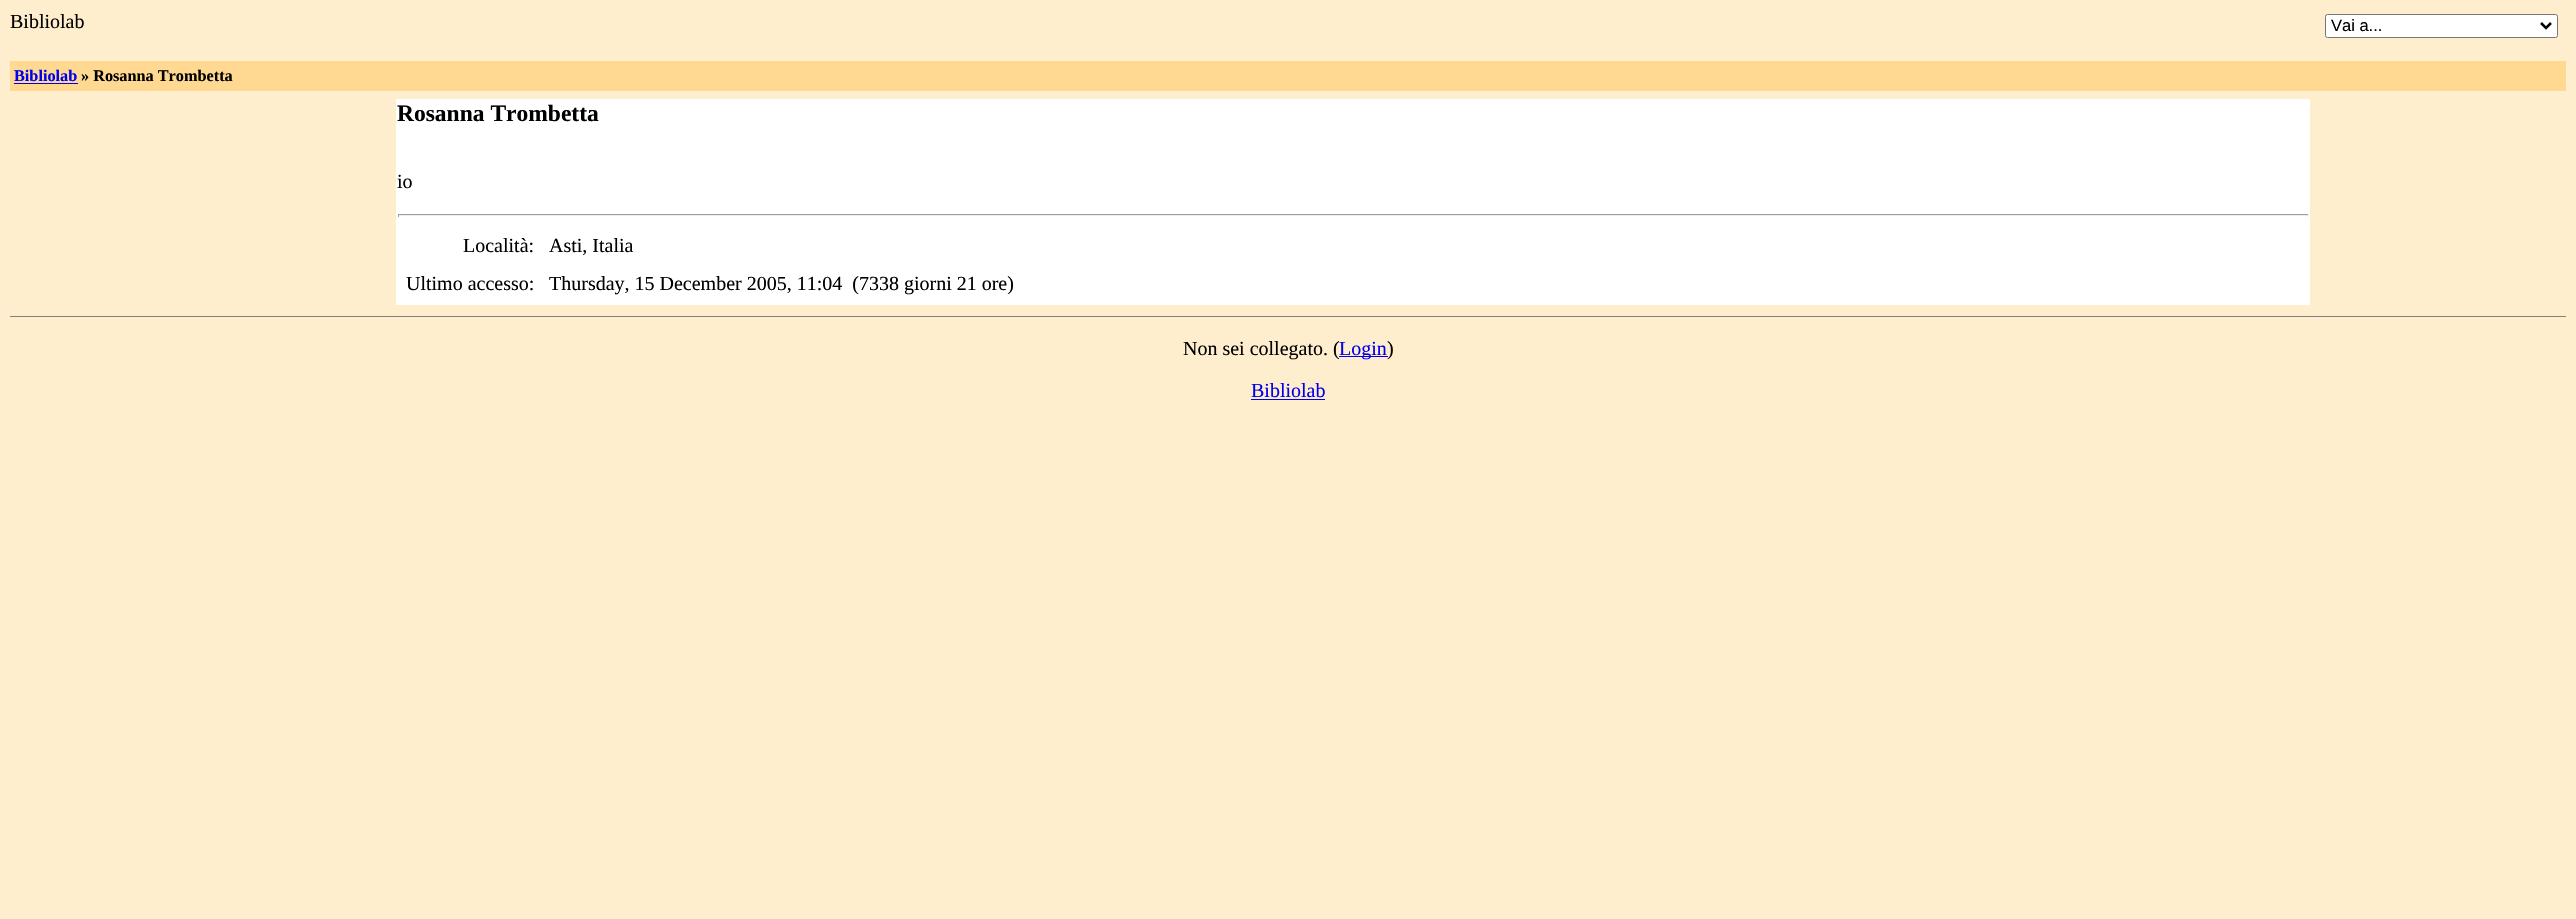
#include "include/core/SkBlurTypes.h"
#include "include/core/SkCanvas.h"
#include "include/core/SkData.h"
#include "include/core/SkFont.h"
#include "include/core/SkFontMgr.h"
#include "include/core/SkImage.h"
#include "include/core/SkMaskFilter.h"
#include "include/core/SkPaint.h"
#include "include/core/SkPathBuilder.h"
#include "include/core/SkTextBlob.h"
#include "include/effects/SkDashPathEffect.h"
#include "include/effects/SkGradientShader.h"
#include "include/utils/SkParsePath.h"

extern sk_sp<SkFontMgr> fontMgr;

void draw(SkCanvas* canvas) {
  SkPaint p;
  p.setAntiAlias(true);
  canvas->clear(SkColorSetRGB(255, 238, 206));
  p.setColor(SK_ColorWHITE);
  canvas->drawRoundRect(SkRect::MakeLTRB(2325.5f, 14.5f, 2557.5f, 37.5f), 2, 2, p);
  p.setStyle(SkPaint::kStroke_Style);
  p.setStrokeWidth(1);
  p.setColor(SkColorSetRGB(118, 118, 118));
  canvas->drawRoundRect(SkRect::MakeLTRB(2325.5f, 14.5f, 2557.5f, 37.5f), 2, 2, p);
  p.setStrokeWidth(2.5f);
  p.setColor(SK_ColorBLACK);
  canvas->drawPath(SkPathBuilder().moveTo(2541, 23).lineTo(2546, 28).lineTo(2551, 23).detach(), p);
  p.setStyle(SkPaint::kFill_Style);
  p.setColor(SkColorSetRGB(255, 217, 145));
  canvas->drawRect(SkRect::MakeLTRB(10, 61, 2566, 91), p);
  p.setColor(SkColorSetRGB(0, 0, 238));
  canvas->drawRect(SkRect::MakeLTRB(14, 83, 78, 84), p);
  p.setColor(SK_ColorWHITE);
  canvas->drawRect(SkRect::MakeLTRB(396, 99, 2310, 305), p);
  p.setColor(SkColorSetRGB(159, 159, 159));
  canvas->drawRect(SkRect::MakeLTRB(398, 214, 2309, 215), p);
  p.setColor(SkColorSetRGB(238, 238, 238));
  canvas->drawRect(SkRect::MakeLTRB(2308, 214, 2309, 217), p);
  canvas->drawRect(SkRect::MakeLTRB(398, 215, 2309, 216), p);
  p.setColor(SkColorSetRGB(159, 159, 159));
  canvas->drawRect(SkRect::MakeLTRB(398, 214, 399, 217), p);
  p.setColor(SkColorSetRGB(128, 128, 128));
  canvas->drawRect(SkRect::MakeLTRB(10, 316, 2566, 317), p);
  p.setColor(SkColorSetRGB(0, 0, 238));
  canvas->drawRect(SkRect::MakeLTRB(1339, 356, 1388, 357), p);
  canvas->drawRect(SkRect::MakeLTRB(1251, 399, 1325, 400), p);
  SkFont font1(fontMgr->matchFamilyStyle("Liberation Serif", SkFontStyle::Normal()), 20);
  font1.setSubpixel(true);
  p.setColor(SK_ColorBLACK);
  canvas->drawString("Bibliolab", 10, 28, font1, p);
  SkFont font2(fontMgr->matchFamilyStyle("Liberation Sans", SkFontStyle::Normal()), 16.5f);
  font2.setSubpixel(true);
  canvas->drawString("Vai a...", 2331, 31, font2, p);
  SkFont font3(fontMgr->matchFamilyStyle("Liberation Serif", SkFontStyle::Bold()), 16.25f);
  font3.setSubpixel(true);
  p.setColor(SkColorSetRGB(0, 0, 238));
  canvas->drawString("Bibliolab", 14, 81, font3, p);
  p.setColor(SK_ColorBLACK);
  canvas->drawString("» Rosanna Trombetta", 81, 81, font3, p);
  SkFont font4(fontMgr->matchFamilyStyle("Liberation Serif", SkFontStyle::Bold()), 23.5f);
  font4.setSubpixel(true);
  canvas->drawString("Rosanna Trombetta", 397, 121, font4, p);
  canvas->drawString("io", 397, 188, font1, p);
  canvas->drawString("Località:", 463, 252, font1, p);
  canvas->drawString("Asti, Italia", 549, 252, font1, p);
  canvas->drawString("Ultimo accesso:", 406, 290, font1, p);
  canvas->drawString("Thursday, 15 December 2005, 11:04  (7338 giorni 21 ore)", 549, 290, font1, p);
  canvas->drawString("Non sei collegato. (", 1183, 355, font1, p);
  p.setColor(SkColorSetRGB(0, 0, 238));
  canvas->drawString("Login", 1339, 355, font1, p);
  p.setColor(SK_ColorBLACK);
  canvas->drawString(")", 1387, 355, font1, p);
  p.setColor(SkColorSetRGB(0, 0, 238));
  canvas->drawString("Bibliolab", 1251, 397, font1, p);
}
